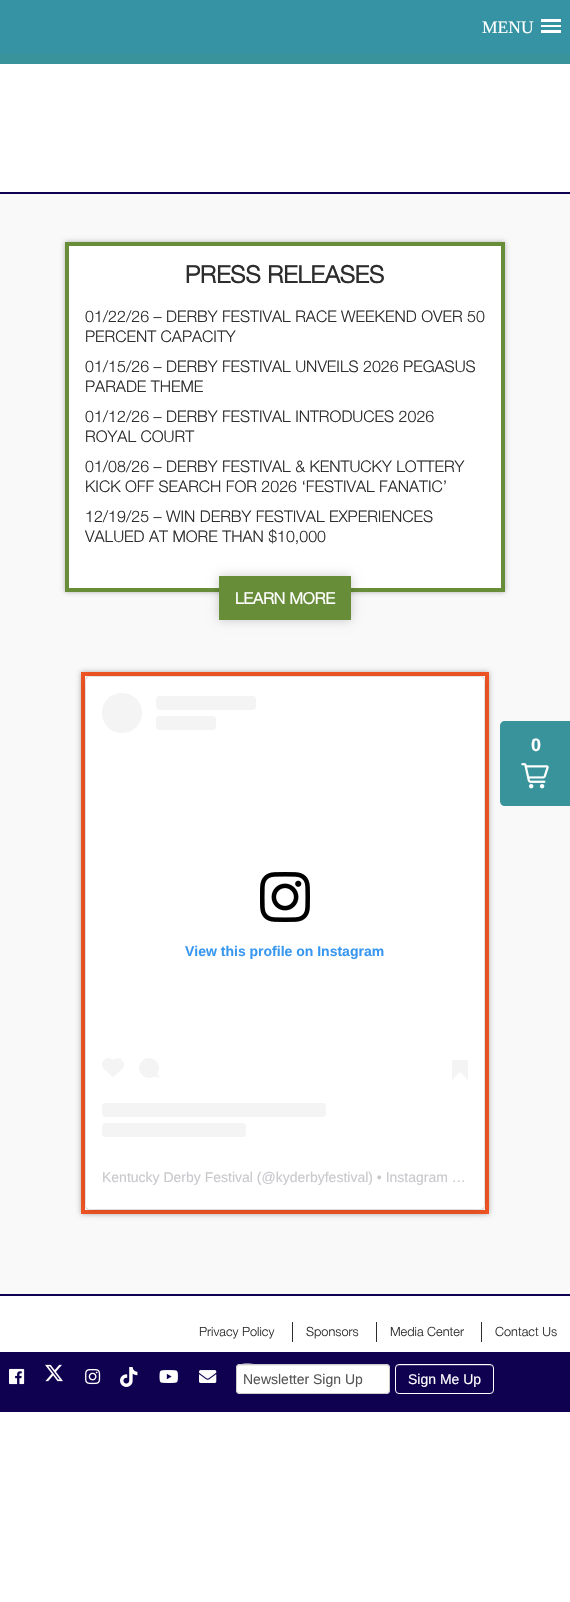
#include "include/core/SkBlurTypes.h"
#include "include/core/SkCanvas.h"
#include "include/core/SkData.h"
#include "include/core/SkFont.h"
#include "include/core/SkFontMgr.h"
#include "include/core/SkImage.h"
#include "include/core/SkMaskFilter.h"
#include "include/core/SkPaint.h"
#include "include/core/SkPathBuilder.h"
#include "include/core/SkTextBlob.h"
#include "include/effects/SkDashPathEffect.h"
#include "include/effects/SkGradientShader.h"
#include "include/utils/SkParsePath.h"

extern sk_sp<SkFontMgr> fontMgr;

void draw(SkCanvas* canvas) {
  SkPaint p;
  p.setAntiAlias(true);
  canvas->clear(SK_ColorWHITE);
  p.setColor(SkColorSetRGB(53, 147, 163));
  canvas->drawRect(SkRect::MakeLTRB(0, 0, 570, 54), p);
  p.setColor(SK_ColorWHITE);
  canvas->drawRect(SkRect::MakeLTRB(541, 19, 561, 22), p);
  canvas->drawRect(SkRect::MakeLTRB(541, 25, 561, 27), p);
  canvas->drawRect(SkRect::MakeLTRB(541, 30, 561, 33), p);
  p.setColor(SkColorSetRGB(56, 147, 155));
  canvas->drawRect(SkRect::MakeLTRB(0, 54, 570, 64), p);
  p.setColor(SkColorSetRGB(249, 249, 249));
  canvas->drawRect(SkRect::MakeLTRB(0, 194, 570, 1294), p);
  p.setColor(SkColorSetRGB(15, 1, 79));
  canvas->drawRect(SkRect::MakeLTRB(0, 192, 570, 194), p);
  canvas->drawRect(SkRect::MakeLTRB(0, 1294, 570, 1296), p);
  p.setColor(SkColorSetARGB(77, 0, 0, 0));
  p.setMaskFilter(SkMaskFilter::MakeBlur(kNormal_SkBlurStyle, 2.5f));
  canvas->drawRect(SkRect::MakeLTRB(65, 242, 505, 592), p);
  p.setMaskFilter(nullptr);
  p.setColor(SK_ColorWHITE);
  canvas->drawRect(SkRect::MakeLTRB(67, 244, 503, 590), p);
  p.setStyle(SkPaint::kStroke_Style);
  p.setStrokeWidth(4);
  p.setColor(SkColorSetRGB(104, 141, 57));
  canvas->drawRect(SkRect::MakeLTRB(67, 244, 503, 590), p);
  p.setStyle(SkPaint::kFill_Style);
  p.setColor(SkColorSetARGB(51, 0, 0, 0));
  p.setMaskFilter(SkMaskFilter::MakeBlur(kNormal_SkBlurStyle, 5));
  canvas->drawRect(SkRect::MakeLTRB(219, 576, 351, 620), p);
  p.setMaskFilter(nullptr);
  p.setColor(SkColorSetRGB(104, 141, 57));
  canvas->drawRect(SkRect::MakeLTRB(219, 576, 351, 620), p);
  p.setColor(SkColorSetARGB(77, 0, 0, 0));
  p.setMaskFilter(SkMaskFilter::MakeBlur(kNormal_SkBlurStyle, 2.5f));
  canvas->drawRect(SkRect::MakeLTRB(81, 672, 489, 1214), p);
  p.setMaskFilter(nullptr);
  p.setColor(SK_ColorWHITE);
  canvas->drawRect(SkRect::MakeLTRB(83, 674, 487, 1212), p);
  p.setStyle(SkPaint::kStroke_Style);
  p.setColor(SkColorSetRGB(240, 84, 35));
  canvas->drawRect(SkRect::MakeLTRB(83, 674, 487, 1212), p);
  p.setStyle(SkPaint::kFill_Style);
  p.setColor(SkColorSetARGB(38, 0, 0, 0));
  p.setMaskFilter(SkMaskFilter::MakeBlur(kNormal_SkBlurStyle, 5));
  canvas->drawRoundRect(SkRect::MakeLTRB(86, 678, 484, 1210), 3, 3, p);
  p.setMaskFilter(nullptr);
  p.setColor(SkColorSetARGB(128, 0, 0, 0));
  p.setMaskFilter(SkMaskFilter::MakeBlur(kNormal_SkBlurStyle, 0.5f));
  canvas->drawRoundRect(SkRect::MakeLTRB(86, 677, 484, 1209), 3, 3, p);
  p.setMaskFilter(nullptr);
  p.setColor(SK_ColorWHITE);
  canvas->drawRoundRect(SkRect::MakeLTRB(86, 677, 484, 1209), 3, 3, p);
  p.setColor(SkColorSetRGB(244, 244, 244));
  canvas->drawCircle(122, 713, 20, p);
  canvas->drawRoundRect(SkRect::MakeLTRB(156, 696, 256, 710), 4, 4, p);
  canvas->drawRoundRect(SkRect::MakeLTRB(156, 716, 216, 730), 4, 4, p);
  canvas->drawImageRect(SkImages::DeferredFromEncodedData(SkData::MakeFromFileName("images/1.png")), SkRect::MakeLTRB(260, 872, 310, 922), SkSamplingOptions());
  canvas->drawCircle(108.5f, 1064.5f, 6.5f, p);
  canvas->drawPath(SkPathBuilder().moveTo(104, 1069).lineTo(113, 1060).lineTo(122, 1069).lineTo(113, 1077.5f).close().detach(), p);
  canvas->drawCircle(117.5f, 1064.5f, 6.5f, p);
  canvas->drawCircle(149, 1068, 10, p);
  canvas->drawPath(SkPathBuilder().moveTo(154, 1076.5f).lineTo(156, 1073).lineTo(160, 1077.5f).close().detach(), p);
  canvas->drawRect(SkRect::MakeLTRB(452, 1060, 468, 1072), p);
  canvas->drawPath(SkPathBuilder().moveTo(452, 1072).lineTo(460, 1072).lineTo(452, 1080).close().detach(), p);
  canvas->drawPath(SkPathBuilder().moveTo(460, 1072).lineTo(468, 1072).lineTo(468, 1080).close().detach(), p);
  canvas->drawRoundRect(SkRect::MakeLTRB(102, 1103, 326, 1117), 4, 4, p);
  canvas->drawRoundRect(SkRect::MakeLTRB(102, 1123, 246, 1137), 4, 4, p);
  p.setColor(SkColorSetRGB(56, 147, 155));
  canvas->drawPath(SkPathBuilder().moveTo(505, 721).lineTo(570, 721).lineTo(570, 806).lineTo(505, 806).cubicTo(502, 806, 500, 804, 500, 801).lineTo(500, 726).cubicTo(500, 723, 502, 721, 505, 721).close().detach(), p);
  canvas->drawImageRect(SkImages::DeferredFromEncodedData(SkData::MakeFromFileName("images/2.png")), SkRect::MakeLTRB(521, 763, 549, 789), SkSamplingOptions());
  p.setColor(SkColorSetRGB(15, 1, 79));
  canvas->drawRect(SkRect::MakeLTRB(0, 1352, 570, 1412), p);
  canvas->drawImageRect(SkImages::DeferredFromEncodedData(SkData::MakeFromFileName("images/3.png")), SkRect::MakeLTRB(9, 1368, 25, 1385), SkSamplingOptions());
  canvas->drawImageRect(SkImages::DeferredFromEncodedData(SkData::MakeFromFileName("images/4.png")), SkRect::MakeLTRB(45, 1364, 63, 1382), SkSamplingOptions());
  canvas->drawImageRect(SkImages::DeferredFromEncodedData(SkData::MakeFromFileName("images/5.png")), SkRect::MakeLTRB(85, 1368, 101, 1385), SkSamplingOptions());
  canvas->drawImageRect(SkImages::DeferredFromEncodedData(SkData::MakeFromFileName("images/6.png")), SkRect::MakeLTRB(120, 1367, 138, 1387), SkSamplingOptions());
  canvas->drawImageRect(SkImages::DeferredFromEncodedData(SkData::MakeFromFileName("images/7.png")), SkRect::MakeLTRB(159, 1370, 178, 1383), SkSamplingOptions());
  canvas->drawImageRect(SkImages::DeferredFromEncodedData(SkData::MakeFromFileName("images/8.png")), SkRect::MakeLTRB(199, 1370, 217, 1383), SkSamplingOptions());
  p.setColor(SK_ColorWHITE);
  canvas->drawRoundRect(SkRect::MakeLTRB(236, 1364, 390, 1394), 4, 4, p);
  p.setColor(SkColorSetRGB(236, 236, 236));
  canvas->drawPath(SkPathBuilder().moveTo(240, 1366).lineTo(386, 1366).cubicTo(388, 1366, 389, 1367, 389, 1369).cubicTo(389, 1367, 389, 1366, 387, 1365).lineTo(264, 1365).cubicTo(257, 1365, 237, 1360, 237, 1369).cubicTo(237, 1367, 238, 1366, 240, 1366).close().detach(), p);
  p.setStyle(SkPaint::kStroke_Style);
  p.setStrokeWidth(1);
  p.setColor(SkColorSetRGB(204, 204, 204));
  canvas->drawRoundRect(SkRect::MakeLTRB(236.5f, 1364.5f, 389.5f, 1393.5f), 3.5f, 3.5f, p);
  p.setStyle(SkPaint::kFill_Style);
  p.setColor(SkColorSetRGB(63, 52, 114));
  canvas->drawPath(SkPathBuilder().moveTo(399, 1366).lineTo(490, 1366).cubicTo(492, 1366, 493, 1367, 493, 1369).cubicTo(493, 1361, 478, 1365, 475, 1365).lineTo(414, 1365).cubicTo(411, 1365, 396, 1361, 396, 1369).cubicTo(396, 1367, 397, 1366, 399, 1366).close().detach(), p);
  p.setStyle(SkPaint::kStroke_Style);
  p.setColor(SK_ColorWHITE);
  canvas->drawRoundRect(SkRect::MakeLTRB(395.5f, 1364.5f, 493.5f, 1393.5f), 3.5f, 3.5f, p);
  p.setStyle(SkPaint::kFill_Style);
  p.setColor(SkColorSetRGB(45, 45, 45));
  canvas->drawRect(SkRect::MakeLTRB(292, 1322, 293, 1342), p);
  canvas->drawRect(SkRect::MakeLTRB(376, 1322, 377, 1342), p);
  canvas->drawRect(SkRect::MakeLTRB(481, 1322, 482, 1342), p);
  SkFont font1(fontMgr->matchFamilyStyle("Liberation Serif", SkFontStyle::Normal()), 17.5f);
  font1.setSubpixel(true);
  p.setColor(SK_ColorWHITE);
  canvas->drawString("MENU", 482, 33, font1, p);
  SkFont font2(fontMgr->matchFamilyStyle("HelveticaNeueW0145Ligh", SkFontStyle::Bold()), 24);
  font2.setSubpixel(true);
  p.setColor(SkColorSetRGB(45, 45, 45));
  canvas->drawString("PRESS RELEASES", 185, 283, font2, p);
  SkFont font3(fontMgr->matchFamilyStyle("HelveticaNeueW0145Ligh", SkFontStyle(300, SkFontStyle::kNormal_Width, SkFontStyle::kUpright_Slant)), 16);
  font3.setSubpixel(true);
  canvas->drawString("01/22/26 – DERBY FESTIVAL RACE WEEKEND OVER 50", 85, 322, font3, p);
  canvas->drawString("PERCENT CAPACITY", 85, 342, font3, p);
  canvas->drawString("01/15/26 – DERBY FESTIVAL UNVEILS 2026 PEGASUS", 85, 372, font3, p);
  canvas->drawString("PARADE THEME", 85, 392, font3, p);
  canvas->drawString("01/12/26 – DERBY FESTIVAL INTRODUCES 2026", 85, 422, font3, p);
  canvas->drawString("ROYAL COURT", 85, 442, font3, p);
  canvas->drawString("01/08/26 – DERBY FESTIVAL & KENTUCKY LOTTERY", 85, 472, font3, p);
  canvas->drawString("KICK OFF SEARCH FOR 2026 ‘FESTIVAL FANATIC’", 85, 492, font3, p);
  canvas->drawString("12/19/25 – WIN DERBY FESTIVAL EXPERIENCES", 85, 522, font3, p);
  canvas->drawString("VALUED AT MORE THAN $10,000", 85, 542, font3, p);
  SkFont font4(fontMgr->matchFamilyStyle("HelveticaNeueW0145Ligh", SkFontStyle::Bold()), 16);
  font4.setSubpixel(true);
  p.setColor(SK_ColorWHITE);
  canvas->drawString("LEARN MORE", 235, 604, font4, p);
  SkFont font5(fontMgr->matchFamilyStyle("Liberation Sans", SkFontStyle::Bold()), 14);
  font5.setSubpixel(true);
  p.setColor(SkColorSetRGB(56, 151, 240));
  canvas->drawString("View this profile on Instagram", 185, 956, font5, p);
  SkFont font6(fontMgr->matchFamilyStyle("Liberation Sans", SkFontStyle::Normal()), 14);
  font6.setSubpixel(true);
  p.setColor(SkColorSetRGB(201, 200, 205));
  canvas->drawString("Kentucky Derby Festival (@kyderbyfestival) • Instagram …", 102, 1182, font6, p);
  SkFont font7(fontMgr->matchFamilyStyle("Liberation Sans", SkFontStyle::Bold()), 18);
  font7.setSubpixel(true);
  p.setColor(SK_ColorWHITE);
  canvas->drawString("0", 531, 751, font7, p);
  p.setColor(SkColorSetRGB(85, 85, 85));
  canvas->drawString("Newsletter Sign Up", 243, 1384, font6, p);
  p.setColor(SK_ColorWHITE);
  canvas->drawString("Sign Me Up", 408, 1384, font6, p);
  SkFont font8(fontMgr->matchFamilyStyle("HelveticaNeueW0145Ligh", SkFontStyle(300, SkFontStyle::kNormal_Width, SkFontStyle::kUpright_Slant)), 12.75f);
  font8.setSubpixel(true);
  p.setColor(SkColorSetRGB(45, 45, 45));
  canvas->drawString("Privacy Policy", 199, 1336, font8, p);
  canvas->drawString("Sponsors", 306, 1336, font8, p);
  canvas->drawString("Media Center", 390, 1336, font8, p);
  canvas->drawString("Contact Us", 495, 1336, font8, p);
}
